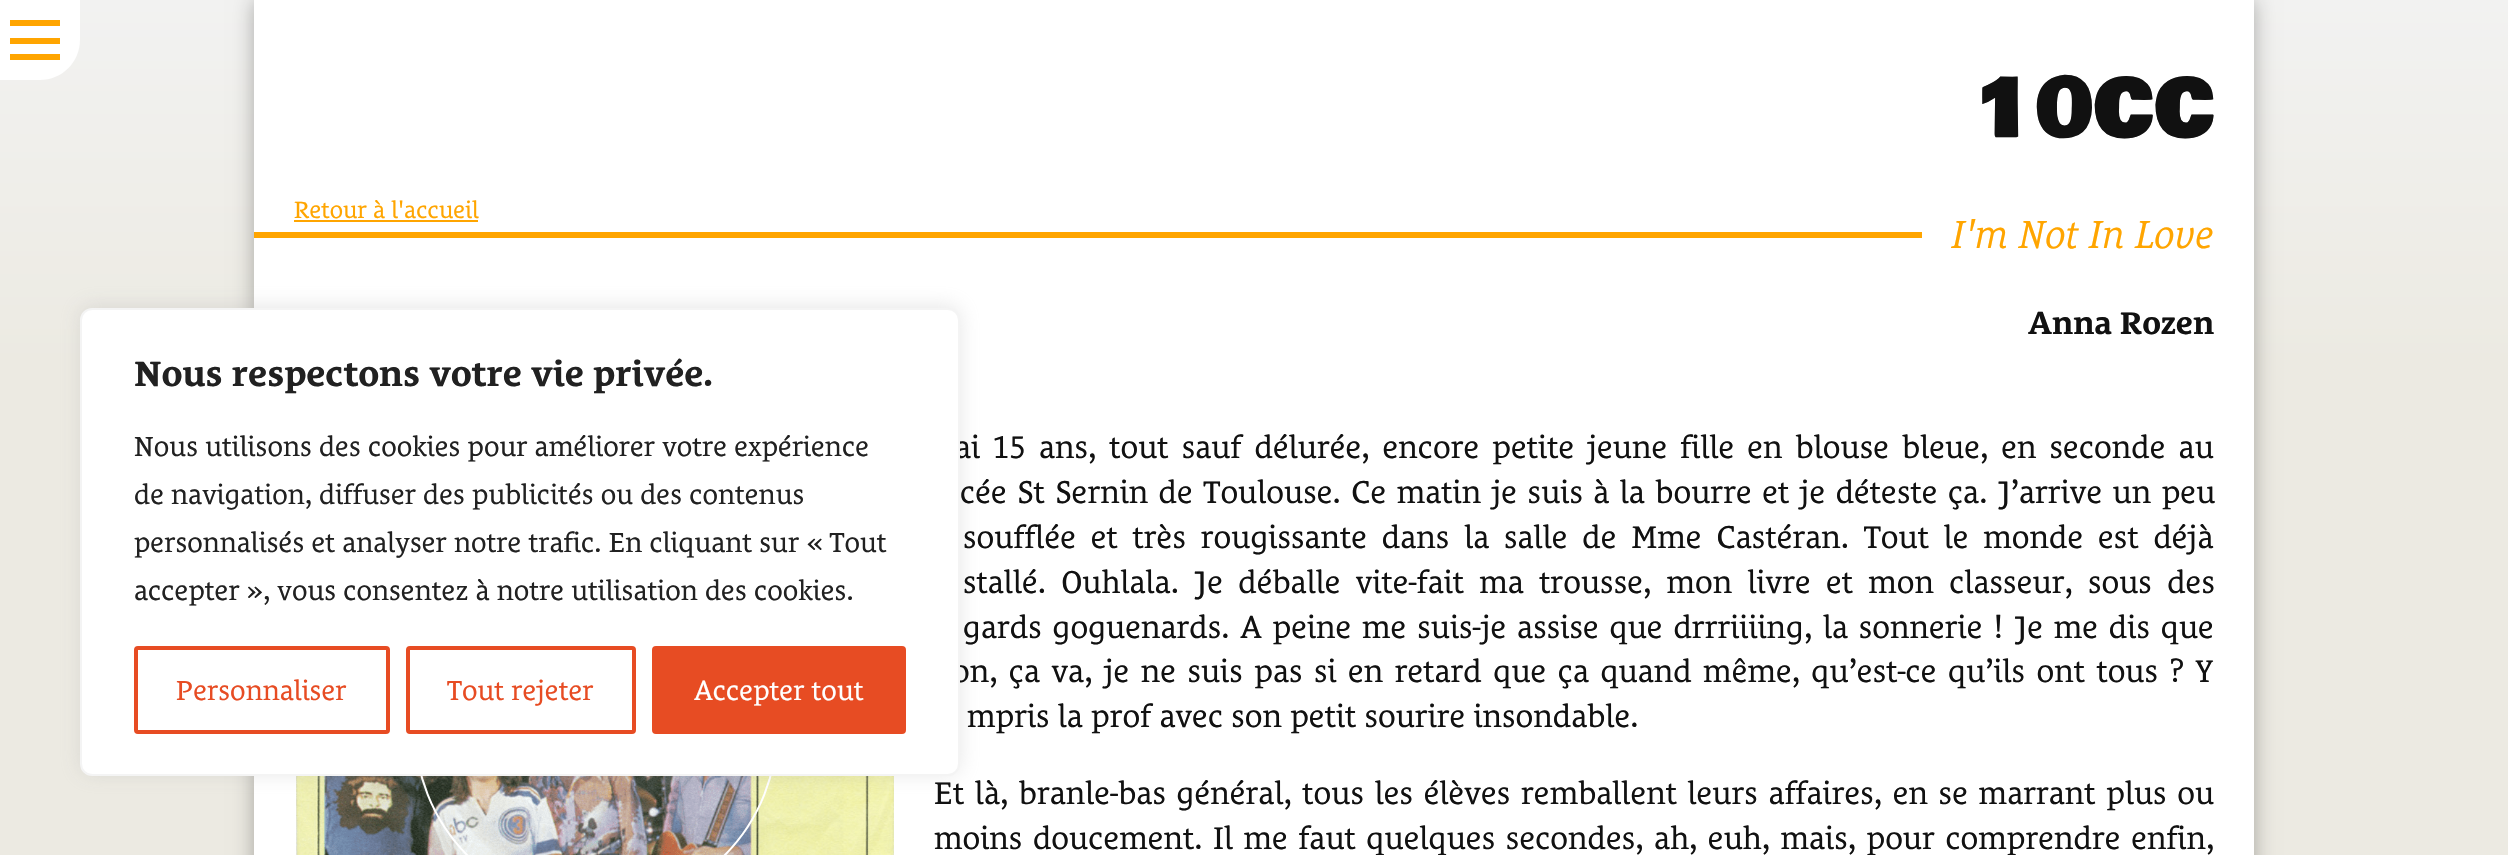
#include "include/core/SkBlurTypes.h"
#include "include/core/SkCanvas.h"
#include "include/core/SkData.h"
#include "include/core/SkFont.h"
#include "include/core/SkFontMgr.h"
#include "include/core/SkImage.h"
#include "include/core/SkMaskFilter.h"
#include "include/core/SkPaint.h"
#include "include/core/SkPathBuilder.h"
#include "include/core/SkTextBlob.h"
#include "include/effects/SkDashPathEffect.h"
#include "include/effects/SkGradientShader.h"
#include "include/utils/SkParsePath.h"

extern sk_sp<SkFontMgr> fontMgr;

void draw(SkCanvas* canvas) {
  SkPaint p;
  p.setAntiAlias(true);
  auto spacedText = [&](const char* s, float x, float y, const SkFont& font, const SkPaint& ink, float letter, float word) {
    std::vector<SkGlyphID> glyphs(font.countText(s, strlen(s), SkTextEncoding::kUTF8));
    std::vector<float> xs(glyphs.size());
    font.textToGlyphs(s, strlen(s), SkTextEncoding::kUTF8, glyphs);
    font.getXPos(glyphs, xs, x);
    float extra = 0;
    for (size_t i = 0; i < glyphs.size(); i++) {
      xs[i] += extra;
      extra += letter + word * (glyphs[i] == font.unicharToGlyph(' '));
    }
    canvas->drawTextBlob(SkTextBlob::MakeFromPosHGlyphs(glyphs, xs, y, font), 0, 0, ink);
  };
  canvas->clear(SK_ColorWHITE);
  {
    const SkColor colors[] = {SkColorSetRGB(236, 234, 226), SkColorSetRGB(242, 242, 241)};
    const float stops[] = {0.9f, 1};
    const SkPoint ends[] = {{1254, 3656}, {1254, 0}};
    p.setShader(SkGradientShader::MakeLinear(ends, colors, stops, 2, SkTileMode::kClamp));
    p.setAlpha(255);
  }
  canvas->drawRect(SkRect::MakeLTRB(0, 0, 2508, 855), p);
  p.setShader(nullptr);
  p.setColor(SK_ColorWHITE);
  canvas->drawPath(SkPathBuilder().moveTo(0, 0).lineTo(80, 0).lineTo(80, 40).cubicTo(80, 62, 62, 80, 40, 80).lineTo(0, 80).close().detach(), p);
  p.setColor(SkColorSetRGB(255, 165, 0));
  canvas->drawRect(SkRect::MakeLTRB(10, 20, 60, 26), p);
  canvas->drawRect(SkRect::MakeLTRB(10, 38, 60, 44), p);
  canvas->drawRect(SkRect::MakeLTRB(10, 54, 60, 60), p);
  p.setColor(SkColorSetARGB(77, 0, 0, 0));
  p.setMaskFilter(SkMaskFilter::MakeBlur(kNormal_SkBlurStyle, 10));
  canvas->drawRect(SkRect::MakeLTRB(254, 0, 2254, 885), p);
  p.setMaskFilter(nullptr);
  p.setColor(SK_ColorWHITE);
  canvas->drawRect(SkRect::MakeLTRB(254, 0, 2254, 855), p);
  p.setColor(SkColorSetRGB(255, 165, 0));
  canvas->drawRect(SkRect::MakeLTRB(294, 220, 478, 222), p);
  canvas->drawRect(SkRect::MakeLTRB(254, 232, 1922, 238), p);
  canvas->drawImageRect(SkImages::DeferredFromEncodedData(SkData::MakeFromFileName("images/1.png")), SkRect::MakeLTRB(296, 776, 894, 855), SkSamplingOptions());
  p.setStyle(SkPaint::kStroke_Style);
  p.setStrokeWidth(2);
  p.setColor(SK_ColorWHITE);
  canvas->drawCircle(596, 728, 181, p);
  p.setStyle(SkPaint::kFill_Style);
  p.setColor(SkColorSetARGB(77, 172, 171, 171));
  p.setMaskFilter(SkMaskFilter::MakeBlur(kNormal_SkBlurStyle, 10));
  canvas->drawRoundRect(SkRect::MakeLTRB(80, 306, 960, 774), 12, 12, p);
  p.setMaskFilter(nullptr);
  SkFont font1(fontMgr->matchFamilyStyle("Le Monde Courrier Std", SkFontStyle::Normal()), 24);
  font1.setSubpixel(true);
  p.setColor(SkColorSetRGB(255, 165, 0));
  canvas->drawString("Retour à l'accueil", 294, 218, font1, p);
  SkFont font2(fontMgr->matchFamilyStyle("Bowlby One", SkFontStyle::Normal()), 80);
  font2.setSubpixel(true);
  p.setColor(SkColorSetRGB(17, 17, 17));
  canvas->drawString("10CC", 1974, 136, font2, p);
  SkFont font3(fontMgr->matchFamilyStyle("Le Monde Courrier Std", SkFontStyle::Italic()), 40);
  font3.setSubpixel(true);
  p.setColor(SkColorSetRGB(255, 165, 0));
  canvas->drawString("I'm Not In Love", 1952, 248, font3, p);
  SkFont font4(fontMgr->matchFamilyStyle("Le Monde Courrier Std", SkFontStyle::Bold()), 32);
  font4.setSubpixel(true);
  p.setColor(SkColorSetRGB(17, 17, 17));
  canvas->drawString("Anna Rozen", 2028, 334, font4, p);
  SkFont font5(fontMgr->matchFamilyStyle("Le Monde Courrier Std", SkFontStyle::Normal()), 32);
  font5.setSubpixel(true);
  spacedText("ai 15 ans, tout sauf délurée, encore petite jeune fille en blouse bleue, en seconde au", 955, 458, font5, p, 0, 4.9f);
  spacedText("cée St Sernin de Toulouse. Ce matin je suis à la bourre et je déteste ça. J’arrive un peu", 960, 503, font5, p, 0, 2.25f);
  spacedText("soufflée et très rougissante dans la salle de Mme Castéran. Tout le monde est déjà", 963, 548, font5, p, 0, 6.6f);
  spacedText("stallé. Ouhlala. Je déballe vite-fait ma trousse, mon livre et mon classeur, sous des", 963, 593, font5, p, 0, 7.1f);
  spacedText("gards goguenards. A peine me suis-je assise que drrriiiing, la sonnerie ! Je me dis que", 963, 638, font5, p, 0, 2.6f);
  spacedText("on, ça va, je ne suis pas si en retard que ça quand même, qu’est-ce qu’ils ont tous ? Y", 952, 682, font5, p, 0, 3.25f);
  canvas->drawString("mpris la prof avec son petit sourire insondable.", 967, 727, font5, p);
  spacedText("Et là, branle-bas général, tous les élèves remballent leurs affaires, en se marrant plus ou", 934, 804, font5, p, 0, 2.5f);
  spacedText("moins doucement. Il me faut quelques secondes, ah, euh, mais, pour comprendre enfin,", 934, 849, font5, p, 0, 2.4f);
  p.setColor(SK_ColorWHITE);
  canvas->drawRoundRect(SkRect::MakeLTRB(81, 309, 959, 775), 11, 11, p);
  p.setStyle(SkPaint::kStroke_Style);
  p.setColor(SkColorSetRGB(244, 244, 244));
  canvas->drawRoundRect(SkRect::MakeLTRB(81, 309, 959, 775), 11, 11, p);
  SkFont font6(fontMgr->matchFamilyStyle("Le Monde Courrier Std", SkFontStyle::Bold()), 36);
  font6.setSubpixel(true);
  p.setStyle(SkPaint::kFill_Style);
  p.setColor(SkColorSetRGB(33, 33, 33));
  canvas->drawString("Nous respectons votre vie privée.", 134, 386, font6, p);
  SkFont font7(fontMgr->matchFamilyStyle("Le Monde Courrier Std", SkFontStyle::Normal()), 28);
  font7.setSubpixel(true);
  canvas->drawString("Nous utilisons des cookies pour améliorer votre expérience", 134, 456, font7, p);
  canvas->drawString("de navigation, diffuser des publicités ou des contenus", 134, 504, font7, p);
  canvas->drawString("personnalisés et analyser notre trafic. En cliquant sur « Tout", 134, 552, font7, p);
  canvas->drawString("accepter », vous consentez à notre utilisation des cookies.", 134, 600, font7, p);
  p.setStyle(SkPaint::kStroke_Style);
  p.setStrokeWidth(4);
  p.setColor(SkColorSetRGB(231, 76, 35));
  canvas->drawRoundRect(SkRect::MakeLTRB(136, 648, 388, 732), 2, 2, p);
  p.setStyle(SkPaint::kFill_Style);
  canvas->drawString("Personnaliser", 176, 700, font7, p);
  p.setStyle(SkPaint::kStroke_Style);
  canvas->drawRoundRect(SkRect::MakeLTRB(408, 648, 634, 732), 2, 2, p);
  p.setStyle(SkPaint::kFill_Style);
  canvas->drawString("Tout rejeter", 447, 700, font7, p);
  canvas->drawRoundRect(SkRect::MakeLTRB(654, 648, 904, 732), 2, 2, p);
  p.setStyle(SkPaint::kStroke_Style);
  canvas->drawRoundRect(SkRect::MakeLTRB(654, 648, 904, 732), 2, 2, p);
  p.setStyle(SkPaint::kFill_Style);
  p.setColor(SK_ColorWHITE);
  canvas->drawString("Accepter tout", 694, 700, font7, p);
}
